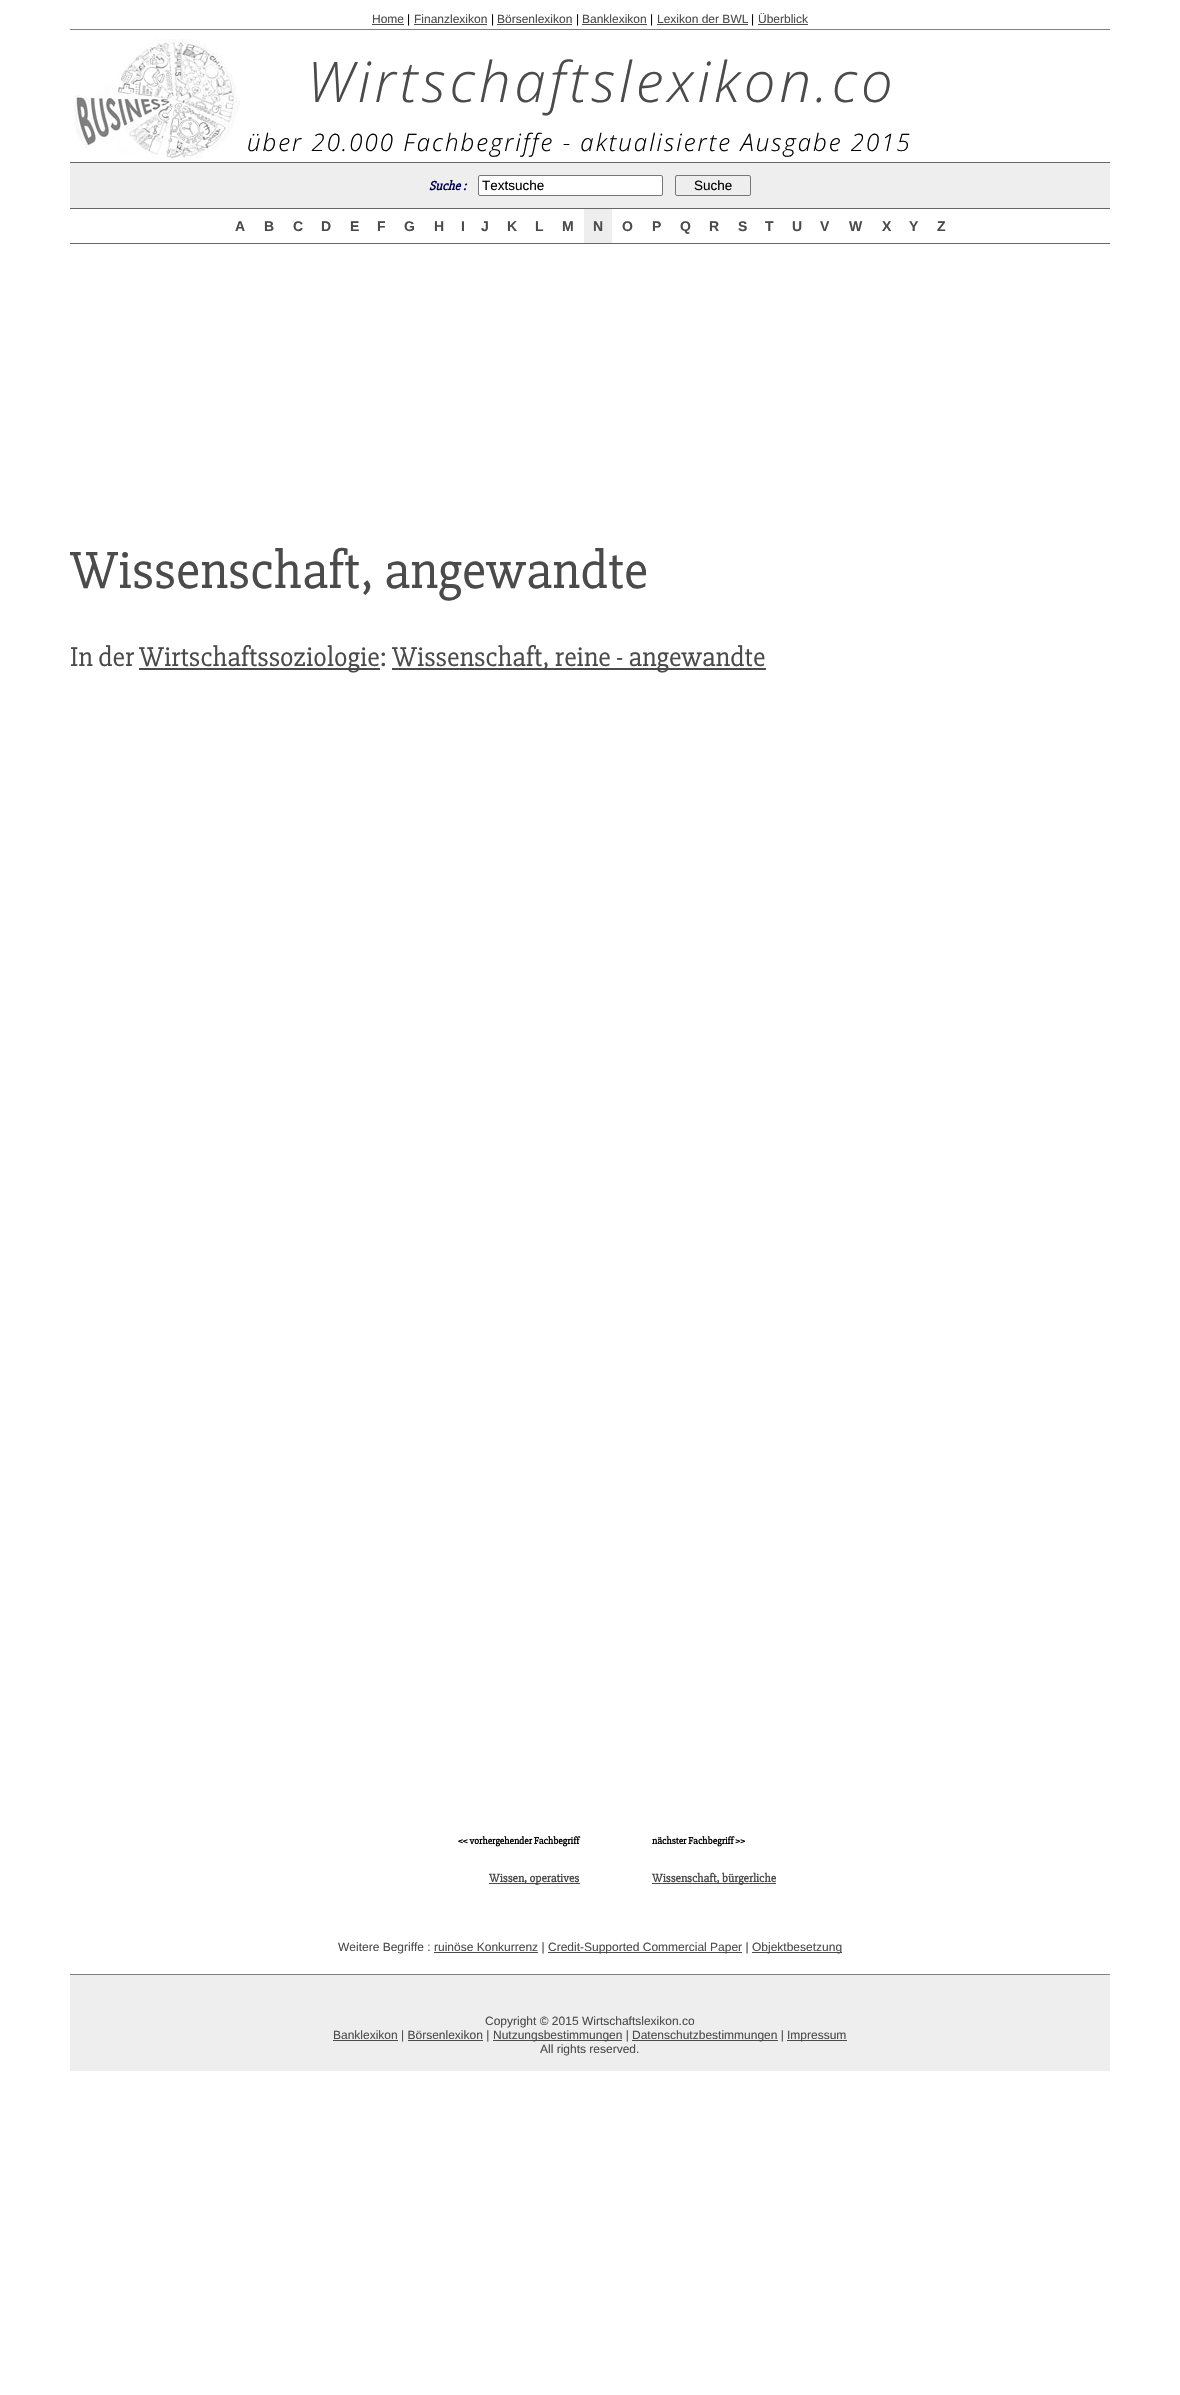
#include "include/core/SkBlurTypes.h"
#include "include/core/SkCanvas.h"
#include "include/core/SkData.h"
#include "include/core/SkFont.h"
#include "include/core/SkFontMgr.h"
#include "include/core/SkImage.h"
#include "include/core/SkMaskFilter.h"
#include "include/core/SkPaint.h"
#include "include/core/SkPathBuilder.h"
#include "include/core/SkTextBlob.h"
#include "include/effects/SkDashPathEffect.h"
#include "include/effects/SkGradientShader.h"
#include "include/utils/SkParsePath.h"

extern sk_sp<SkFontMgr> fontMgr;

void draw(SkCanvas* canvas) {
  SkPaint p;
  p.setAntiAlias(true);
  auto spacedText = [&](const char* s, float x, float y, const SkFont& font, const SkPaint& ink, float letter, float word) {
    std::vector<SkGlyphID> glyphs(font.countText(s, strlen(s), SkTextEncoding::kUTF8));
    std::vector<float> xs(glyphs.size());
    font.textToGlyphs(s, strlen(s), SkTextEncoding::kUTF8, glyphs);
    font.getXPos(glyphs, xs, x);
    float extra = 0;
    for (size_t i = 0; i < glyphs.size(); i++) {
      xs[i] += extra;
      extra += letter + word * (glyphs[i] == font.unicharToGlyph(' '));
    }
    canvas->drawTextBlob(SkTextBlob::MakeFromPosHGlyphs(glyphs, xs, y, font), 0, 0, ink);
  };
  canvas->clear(SK_ColorWHITE);
  p.setColor(SkColorSetRGB(128, 128, 128));
  canvas->drawRect(SkRect::MakeLTRB(70, 29, 1110, 30), p);
  p.setColor(SkColorSetRGB(75, 75, 75));
  canvas->drawRect(SkRect::MakeLTRB(372, 24, 404, 25), p);
  canvas->drawRect(SkRect::MakeLTRB(414, 24, 487, 25), p);
  canvas->drawRect(SkRect::MakeLTRB(497, 24, 572, 25), p);
  canvas->drawRect(SkRect::MakeLTRB(582, 24, 647, 25), p);
  canvas->drawRect(SkRect::MakeLTRB(657, 24, 748, 25), p);
  canvas->drawRect(SkRect::MakeLTRB(758, 24, 808, 25), p);
  canvas->drawImageRect(SkImages::DeferredFromEncodedData(SkData::MakeFromFileName("images/1.png")), SkRect::MakeLTRB(74, 39, 240, 159), SkSamplingOptions());
  p.setColor(SkColorSetRGB(102, 102, 102));
  canvas->drawRect(SkRect::MakeLTRB(70, 162, 1110, 163), p);
  p.setColor(SkColorSetRGB(238, 238, 238));
  canvas->drawRect(SkRect::MakeLTRB(70, 163, 1110, 208), p);
  p.setColor(SK_ColorWHITE);
  canvas->drawRoundRect(SkRect::MakeLTRB(478.5f, 175.5f, 662.5f, 195.5f), 1.5f, 1.5f, p);
  p.setStyle(SkPaint::kStroke_Style);
  p.setStrokeWidth(1);
  p.setColor(SkColorSetRGB(118, 118, 118));
  canvas->drawRoundRect(SkRect::MakeLTRB(478.5f, 175.5f, 662.5f, 195.5f), 1.5f, 1.5f, p);
  canvas->drawRoundRect(SkRect::MakeLTRB(675.5f, 175.5f, 750.5f, 195.5f), 1.5f, 1.5f, p);
  p.setStyle(SkPaint::kFill_Style);
  p.setColor(SkColorSetRGB(102, 102, 102));
  canvas->drawRect(SkRect::MakeLTRB(70, 208, 1110, 209), p);
  canvas->drawRect(SkRect::MakeLTRB(70, 243, 1110, 244), p);
  p.setColor(SkColorSetRGB(238, 238, 238));
  canvas->drawRect(SkRect::MakeLTRB(584, 209, 612, 243), p);
  p.setColor(SkColorSetRGB(75, 75, 75));
  canvas->drawRect(SkRect::MakeLTRB(139, 668, 380, 670), p);
  canvas->drawRect(SkRect::MakeLTRB(392, 668, 766, 670), p);
  canvas->drawRect(SkRect::MakeLTRB(489, 1883, 580, 1884), p);
  canvas->drawRect(SkRect::MakeLTRB(652, 1883, 776, 1884), p);
  canvas->drawRect(SkRect::MakeLTRB(548, 1952, 742, 1953), p);
  canvas->drawRect(SkRect::MakeLTRB(752, 1952, 842, 1953), p);
  canvas->drawRect(SkRect::MakeLTRB(434, 1952, 538, 1953), p);
  p.setColor(SkColorSetRGB(238, 238, 238));
  canvas->drawRect(SkRect::MakeLTRB(70, 1975, 1110, 2071), p);
  p.setColor(SkColorSetRGB(128, 128, 128));
  canvas->drawRect(SkRect::MakeLTRB(70, 1974, 1110, 1975), p);
  p.setColor(SkColorSetRGB(75, 75, 75));
  canvas->drawRect(SkRect::MakeLTRB(333, 2040, 398, 2041), p);
  canvas->drawRect(SkRect::MakeLTRB(493, 2040, 622, 2041), p);
  canvas->drawRect(SkRect::MakeLTRB(632, 2040, 778, 2041), p);
  canvas->drawRect(SkRect::MakeLTRB(787, 2040, 847, 2041), p);
  canvas->drawRect(SkRect::MakeLTRB(408, 2040, 483, 2041), p);
  SkFont font1(fontMgr->matchFamilyStyle("Liberation Sans", SkFontStyle::Normal()), 12);
  font1.setSubpixel(true);
  canvas->drawString("Home", 372, 23, font1, p);
  p.setColor(SK_ColorBLACK);
  canvas->drawString("|", 407, 23, font1, p);
  p.setColor(SkColorSetRGB(75, 75, 75));
  canvas->drawString("Finanzlexikon", 414, 23, font1, p);
  p.setColor(SK_ColorBLACK);
  canvas->drawString("|", 491, 23, font1, p);
  p.setColor(SkColorSetRGB(75, 75, 75));
  canvas->drawString("Börsenlexikon", 497, 23, font1, p);
  p.setColor(SK_ColorBLACK);
  canvas->drawString("|", 576, 23, font1, p);
  p.setColor(SkColorSetRGB(75, 75, 75));
  canvas->drawString("Banklexikon", 582, 23, font1, p);
  p.setColor(SK_ColorBLACK);
  canvas->drawString("|", 650, 23, font1, p);
  p.setColor(SkColorSetRGB(75, 75, 75));
  canvas->drawString("Lexikon der BWL", 657, 23, font1, p);
  p.setColor(SK_ColorBLACK);
  canvas->drawString("|", 751, 23, font1, p);
  p.setColor(SkColorSetRGB(75, 75, 75));
  canvas->drawString("Überblick", 758, 23, font1, p);
  SkFont font2(fontMgr->matchFamilyStyle("Open Sans", SkFontStyle(300, SkFontStyle::kNormal_Width, SkFontStyle::kItalic_Slant)), 56);
  font2.setSubpixel(true);
  spacedText("Wirtschaftslexikon.co", 307, 102, font2, p, 4, 0);
  SkFont font3(fontMgr->matchFamilyStyle("Open Sans", SkFontStyle(300, SkFontStyle::kNormal_Width, SkFontStyle::kItalic_Slant)), 24);
  font3.setSubpixel(true);
  p.setColor(SK_ColorBLACK);
  spacedText("über 20.000 Fachbegriffe - aktualisierte Ausgabe 2015", 247, 151, font3, p, 2, 0);
  SkFont font4(fontMgr->matchFamilyStyle("Slabo 27px", SkFontStyle::BoldItalic()), 13);
  font4.setSubpixel(true);
  p.setColor(SkColorSetRGB(0, 0, 85));
  canvas->drawString("Suche :", 429, 190, font4, p);
  SkFont font5(fontMgr->matchFamilyStyle("Liberation Sans", SkFontStyle::Normal()), 13.5f);
  font5.setSubpixel(true);
  p.setColor(SK_ColorBLACK);
  canvas->drawString("Textsuche", 482, 190, font5, p);
  canvas->drawString("Suche", 694, 190, font5, p);
  SkFont font6(fontMgr->matchFamilyStyle("Liberation Sans", SkFontStyle::Bold()), 14);
  font6.setSubpixel(true);
  p.setColor(SkColorSetRGB(75, 75, 75));
  canvas->drawString("A", 235, 231, font6, p);
  canvas->drawString("B", 264, 231, font6, p);
  canvas->drawString("C", 293, 231, font6, p);
  canvas->drawString("D", 321, 231, font6, p);
  canvas->drawString("E", 350, 231, font6, p);
  canvas->drawString("F", 377, 231, font6, p);
  canvas->drawString("G", 404, 231, font6, p);
  canvas->drawString("H", 434, 231, font6, p);
  canvas->drawString("I", 461, 231, font6, p);
  canvas->drawString("J", 481, 231, font6, p);
  canvas->drawString("K", 507, 231, font6, p);
  canvas->drawString("L", 535, 231, font6, p);
  canvas->drawString("M", 562, 231, font6, p);
  canvas->drawString("N", 593, 231, font6, p);
  canvas->drawString("O", 622, 231, font6, p);
  canvas->drawString("P", 652, 231, font6, p);
  canvas->drawString("Q", 680, 231, font6, p);
  canvas->drawString("R", 709, 231, font6, p);
  canvas->drawString("S", 738, 231, font6, p);
  canvas->drawString("T", 765, 231, font6, p);
  canvas->drawString("U", 792, 231, font6, p);
  canvas->drawString("V", 820, 231, font6, p);
  canvas->drawString("W", 849, 231, font6, p);
  canvas->drawString("X", 882, 231, font6, p);
  canvas->drawString("Y", 909, 231, font6, p);
  canvas->drawString("Z", 937, 231, font6, p);
  SkFont font7(fontMgr->matchFamilyStyle("Slabo 27px", SkFontStyle::Normal()), 54);
  font7.setSubpixel(true);
  canvas->drawString("Wissenschaft, angewandte", 70, 588, font7, p);
  SkFont font8(fontMgr->matchFamilyStyle("Slabo 27px", SkFontStyle::Normal()), 28);
  font8.setSubpixel(true);
  canvas->drawString("In der", 70, 666, font8, p);
  canvas->drawString("Wirtschaftssoziologie:", 139, 666, font8, p);
  canvas->drawString("Wissenschaft, reine - angewandte", 392, 666, font8, p);
  SkFont font9(fontMgr->matchFamilyStyle("Slabo 27px", SkFontStyle::Bold()), 10);
  font9.setSubpixel(true);
  p.setColor(SK_ColorBLACK);
  canvas->drawString("<< vorhergehender Fachbegriff", 458, 1844, font9, p);
  canvas->drawString("nächster Fachbegriff >>", 652, 1844, font9, p);
  SkFont font10(fontMgr->matchFamilyStyle("Slabo 27px", SkFontStyle::Bold()), 12);
  font10.setSubpixel(true);
  p.setColor(SkColorSetRGB(75, 75, 75));
  canvas->drawString("Wissen, operatives", 489, 1882, font10, p);
  canvas->drawString("Wissenschaft, bürgerliche", 652, 1882, font10, p);
  canvas->drawString("Weitere Begriffe : ruinöse Konkurrenz |", 338, 1951, font1, p);
  canvas->drawString("Credit-Supported Commercial Paper |", 548, 1951, font1, p);
  canvas->drawString("Objektbesetzung", 752, 1951, font1, p);
  canvas->drawString("Copyright © 2015 Wirtschaftslexikon.co", 485, 2025, font1, p);
  canvas->drawString("Banklexikon | Börsenlexikon |", 333, 2039, font1, p);
  canvas->drawString("Nutzungsbestimmungen |", 493, 2039, font1, p);
  canvas->drawString("Datenschutzbestimmungen |", 632, 2039, font1, p);
  canvas->drawString("Impressum", 787, 2039, font1, p);
  canvas->drawString("All rights reserved.", 540, 2053, font1, p);
}
